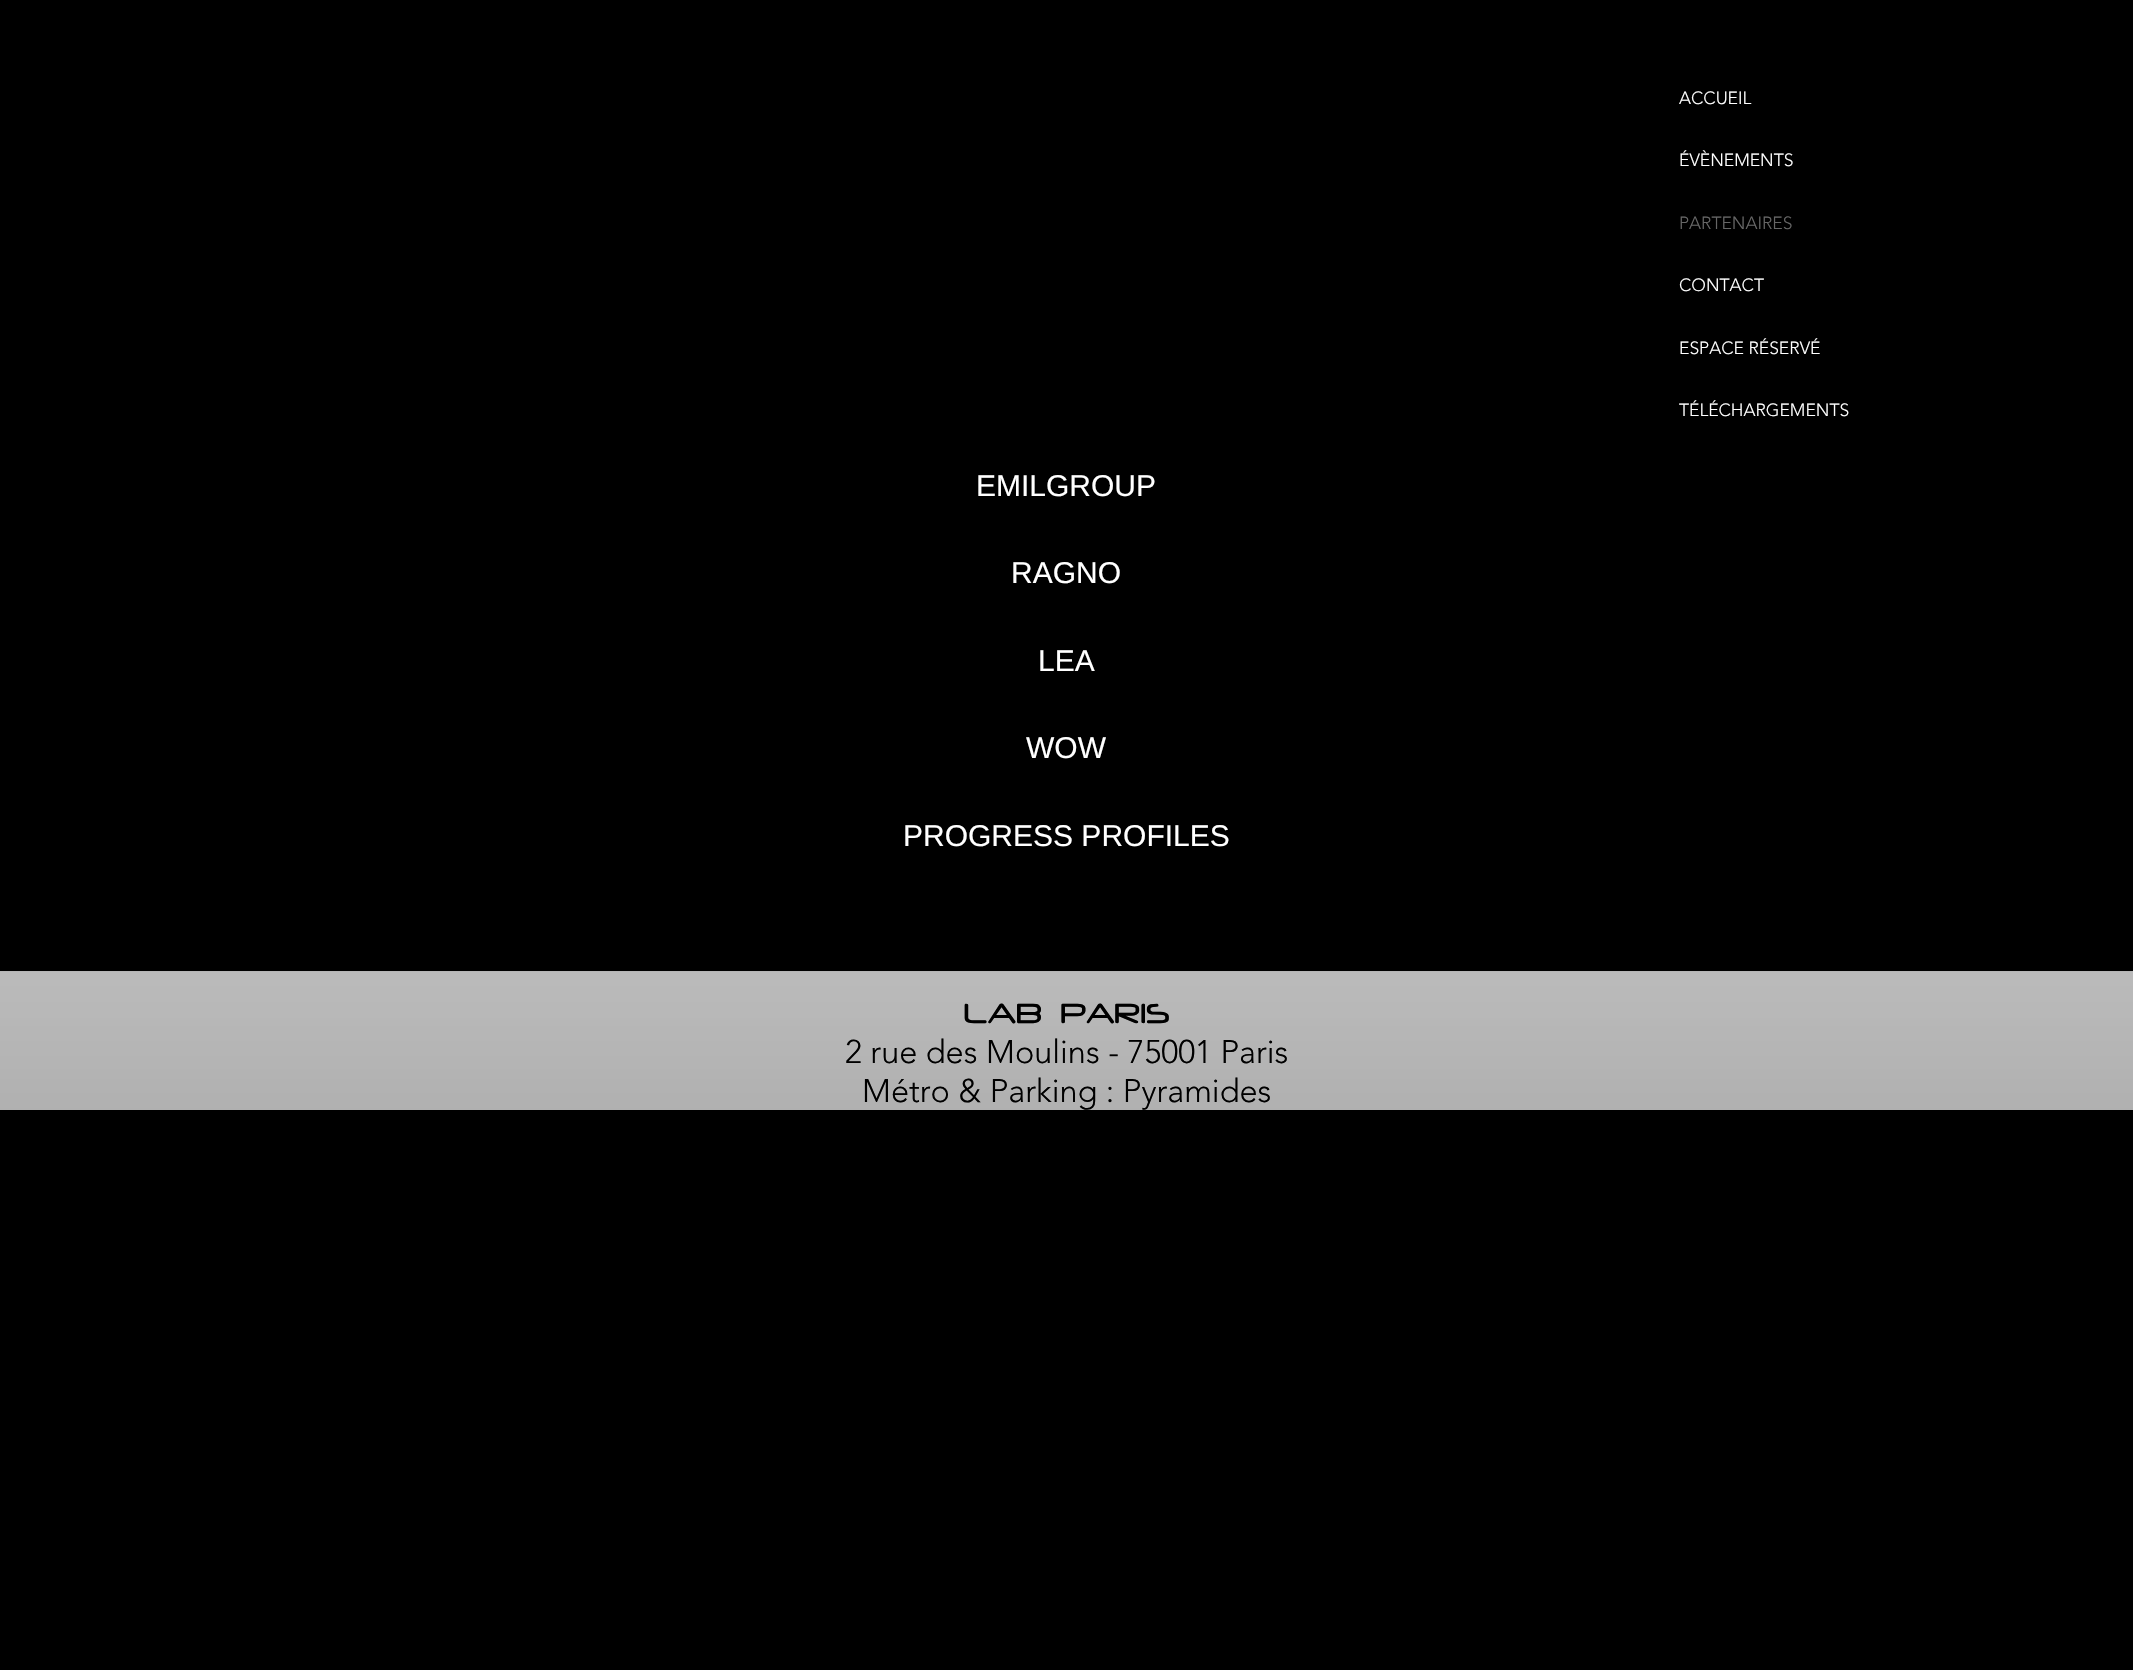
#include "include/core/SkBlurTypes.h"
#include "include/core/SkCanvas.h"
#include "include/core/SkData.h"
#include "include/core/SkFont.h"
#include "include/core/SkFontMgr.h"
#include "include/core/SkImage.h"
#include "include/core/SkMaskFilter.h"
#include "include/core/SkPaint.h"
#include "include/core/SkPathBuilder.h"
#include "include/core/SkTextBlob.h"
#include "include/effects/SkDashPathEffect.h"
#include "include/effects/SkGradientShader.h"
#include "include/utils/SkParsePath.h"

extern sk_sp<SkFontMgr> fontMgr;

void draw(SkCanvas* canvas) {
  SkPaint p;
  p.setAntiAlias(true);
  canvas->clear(SK_ColorBLACK);
  p.setColor(SkColorSetRGB(163, 163, 163));
  canvas->drawRect(SkRect::MakeLTRB(0, 971, 2133, 1110), p);
  canvas->drawImageRect(SkImages::DeferredFromEncodedData(SkData::MakeFromFileName("images/1.png")), SkRect::MakeLTRB(0, 971, 2133, 1110), SkSamplingOptions());
  SkFont font1(fontMgr->matchFamilyStyle("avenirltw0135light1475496", SkFontStyle(300, SkFontStyle::kNormal_Width, SkFontStyle::kUpright_Slant)), 17.5f);
  font1.setSubpixel(true);
  p.setColor(SK_ColorWHITE);
  canvas->drawString("ACCUEIL", 1679, 104, font1, p);
  canvas->drawString("ÉVÈNEMENTS", 1679, 166, font1, p);
  p.setColor(SkColorSetRGB(102, 102, 102));
  canvas->drawString("PARTENAIRES", 1679, 229, font1, p);
  p.setColor(SK_ColorWHITE);
  canvas->drawString("CONTACT", 1679, 291, font1, p);
  canvas->drawString("ESPACE RÉSERVÉ", 1679, 354, font1, p);
  canvas->drawString("TÉLÉCHARGEMENTS", 1679, 416, font1, p);
  SkFont font2(fontMgr->matchFamilyStyle("Liberation Sans", SkFontStyle::Normal()), 30);
  font2.setSubpixel(true);
  canvas->drawString("EMILGROUP", 976, 496, font2, p);
  canvas->drawString("RAGNO", 1011, 583, font2, p);
  canvas->drawString("LEA", 1038, 671, font2, p);
  canvas->drawString("WOW", 1026, 758, font2, p);
  canvas->drawString("PROGRESS PROFILES", 903, 846, font2, p);
  SkFont font3(fontMgr->matchFamilyStyle("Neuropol", SkFontStyle::Normal()), 32.5f);
  font3.setSubpixel(true);
  p.setColor(SK_ColorBLACK);
  canvas->drawString("LAB  PARIS", 964, 1023, font3, p);
  SkFont font4(fontMgr->matchFamilyStyle("avenirltw0135light1475496", SkFontStyle(300, SkFontStyle::kNormal_Width, SkFontStyle::kUpright_Slant)), 32.5f);
  font4.setSubpixel(true);
  canvas->drawString("2 rue des Moulins - 75001 Paris", 845, 1063, font4, p);
  canvas->drawString("Métro & Parking : Pyramides", 862, 1102, font4, p);
}
